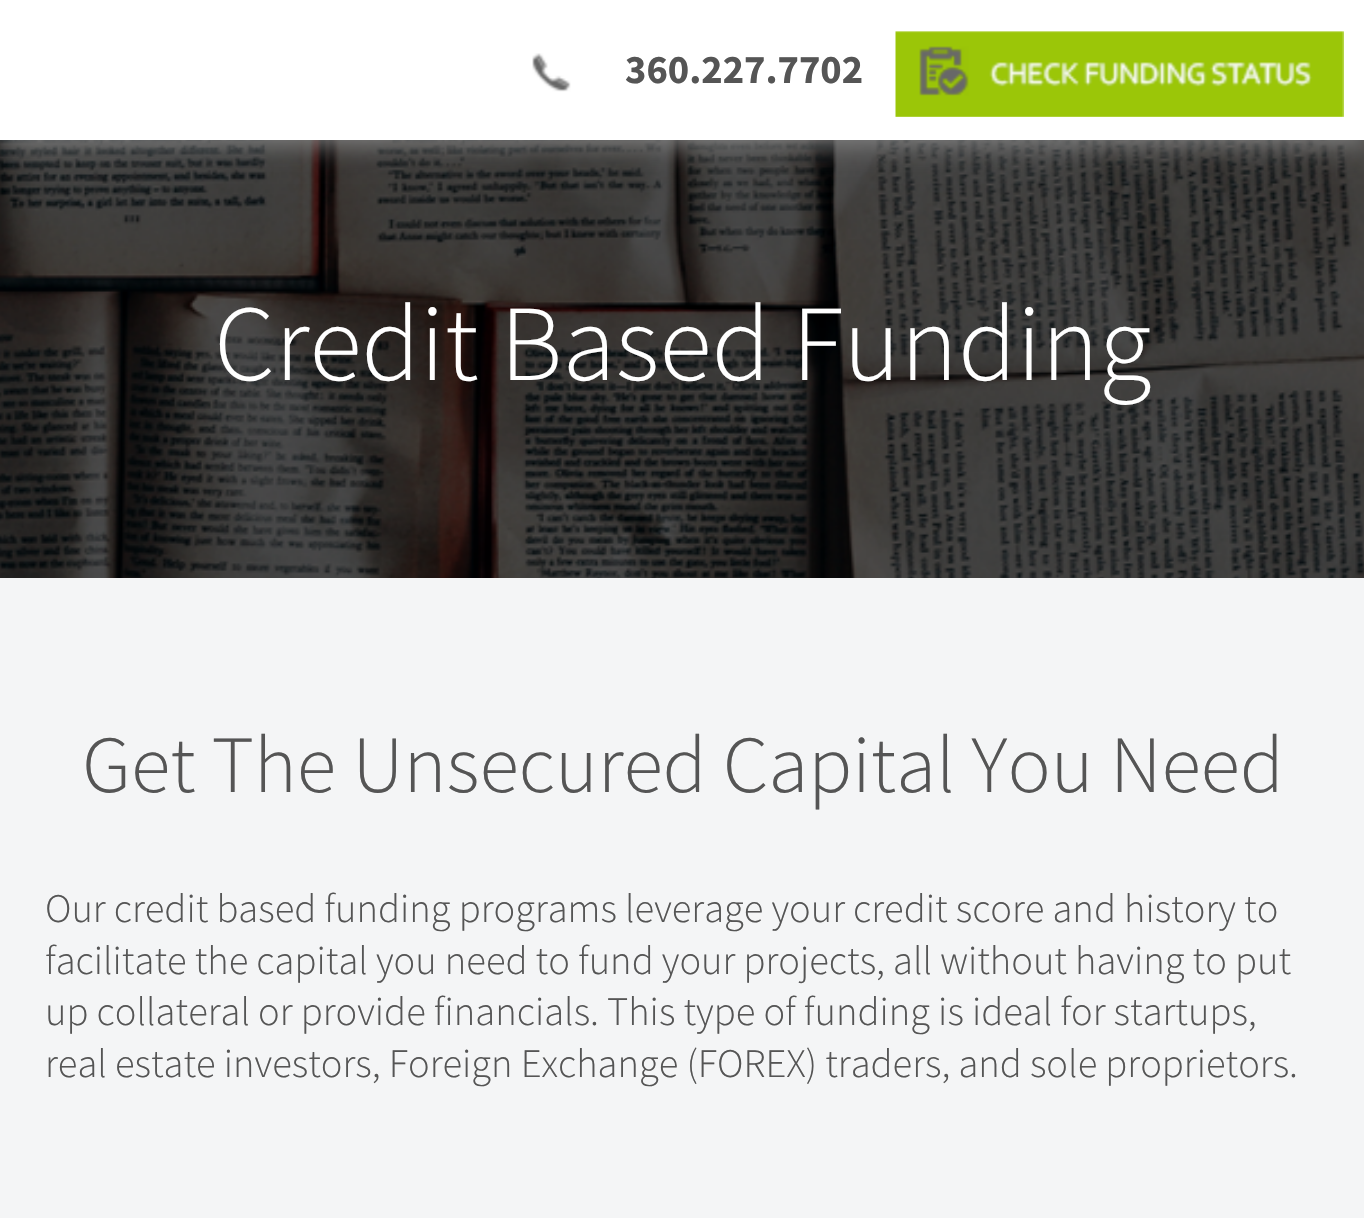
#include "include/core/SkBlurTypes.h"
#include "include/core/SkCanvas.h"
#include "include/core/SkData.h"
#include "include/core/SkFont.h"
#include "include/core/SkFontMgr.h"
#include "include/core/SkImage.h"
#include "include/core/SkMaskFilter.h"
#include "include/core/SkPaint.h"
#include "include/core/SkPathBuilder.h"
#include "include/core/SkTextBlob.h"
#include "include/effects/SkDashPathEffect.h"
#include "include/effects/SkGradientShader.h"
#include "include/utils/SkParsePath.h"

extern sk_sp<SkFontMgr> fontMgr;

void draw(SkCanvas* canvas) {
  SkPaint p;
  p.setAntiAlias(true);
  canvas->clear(SK_ColorWHITE);
  canvas->drawImageRect(SkImages::DeferredFromEncodedData(SkData::MakeFromFileName("images/3.png")), SkRect::MakeLTRB(0, 140, 1364, 578), SkSamplingOptions());
  p.setColor(SkColorSetRGB(136, 136, 136));
  p.setMaskFilter(SkMaskFilter::MakeBlur(kNormal_SkBlurStyle, 13.5f));
  canvas->drawRect(SkRect::MakeLTRB(0, 5, 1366, 144), p);
  p.setMaskFilter(nullptr);
  p.setColor(SK_ColorWHITE);
  canvas->drawRect(SkRect::MakeLTRB(0, 0, 1364, 140), p);
  canvas->drawImageRect(SkImages::DeferredFromEncodedData(SkData::MakeFromFileName("images/1.png")), SkRect::MakeLTRB(532, 53, 571, 92), SkSamplingOptions());
  canvas->drawImageRect(SkImages::DeferredFromEncodedData(SkData::MakeFromFileName("images/2.png")), SkRect::MakeLTRB(895, 31, 1344, 117), SkSamplingOptions());
  p.setColor(SkColorSetRGB(244, 245, 246));
  canvas->drawRect(SkRect::MakeLTRB(0, 578, 1364, 1218), p);
  SkFont font1(fontMgr->matchFamilyStyle("Source Sans Pro", SkFontStyle::Bold()), 40.5f);
  font1.setSubpixel(true);
  p.setColor(SkColorSetRGB(85, 85, 85));
  canvas->drawString("360.227.7702", 625, 83, font1, p);
  SkFont font2(fontMgr->matchFamilyStyle("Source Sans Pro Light", SkFontStyle(300, SkFontStyle::kNormal_Width, SkFontStyle::kUpright_Slant)), 108);
  font2.setSubpixel(true);
  p.setColor(SK_ColorWHITE);
  canvas->drawString("Credit Based Funding", 214, 380, font2, p);
  SkFont font3(fontMgr->matchFamilyStyle("Source Sans Pro Light", SkFontStyle(300, SkFontStyle::kNormal_Width, SkFontStyle::kUpright_Slant)), 81);
  font3.setSubpixel(true);
  p.setColor(SkColorSetRGB(85, 85, 85));
  canvas->drawString("Get The Unsecured Capital You Need", 82, 792, font3, p);
  SkFont font4(fontMgr->matchFamilyStyle("Source Sans Pro Light", SkFontStyle(300, SkFontStyle::kNormal_Width, SkFontStyle::kUpright_Slant)), 40.5f);
  font4.setSubpixel(true);
  canvas->drawString("Our credit based funding programs leverage your credit score and history to", 45, 922, font4, p);
  canvas->drawString("facilitate the capital you need to fund your projects, all without having to put", 45, 974, font4, p);
  canvas->drawString("up collateral or provide financials. This type of funding is ideal for startups,", 45, 1025, font4, p);
  canvas->drawString("real estate investors, Foreign Exchange (FOREX) traders, and sole proprietors.", 45, 1077, font4, p);
}
